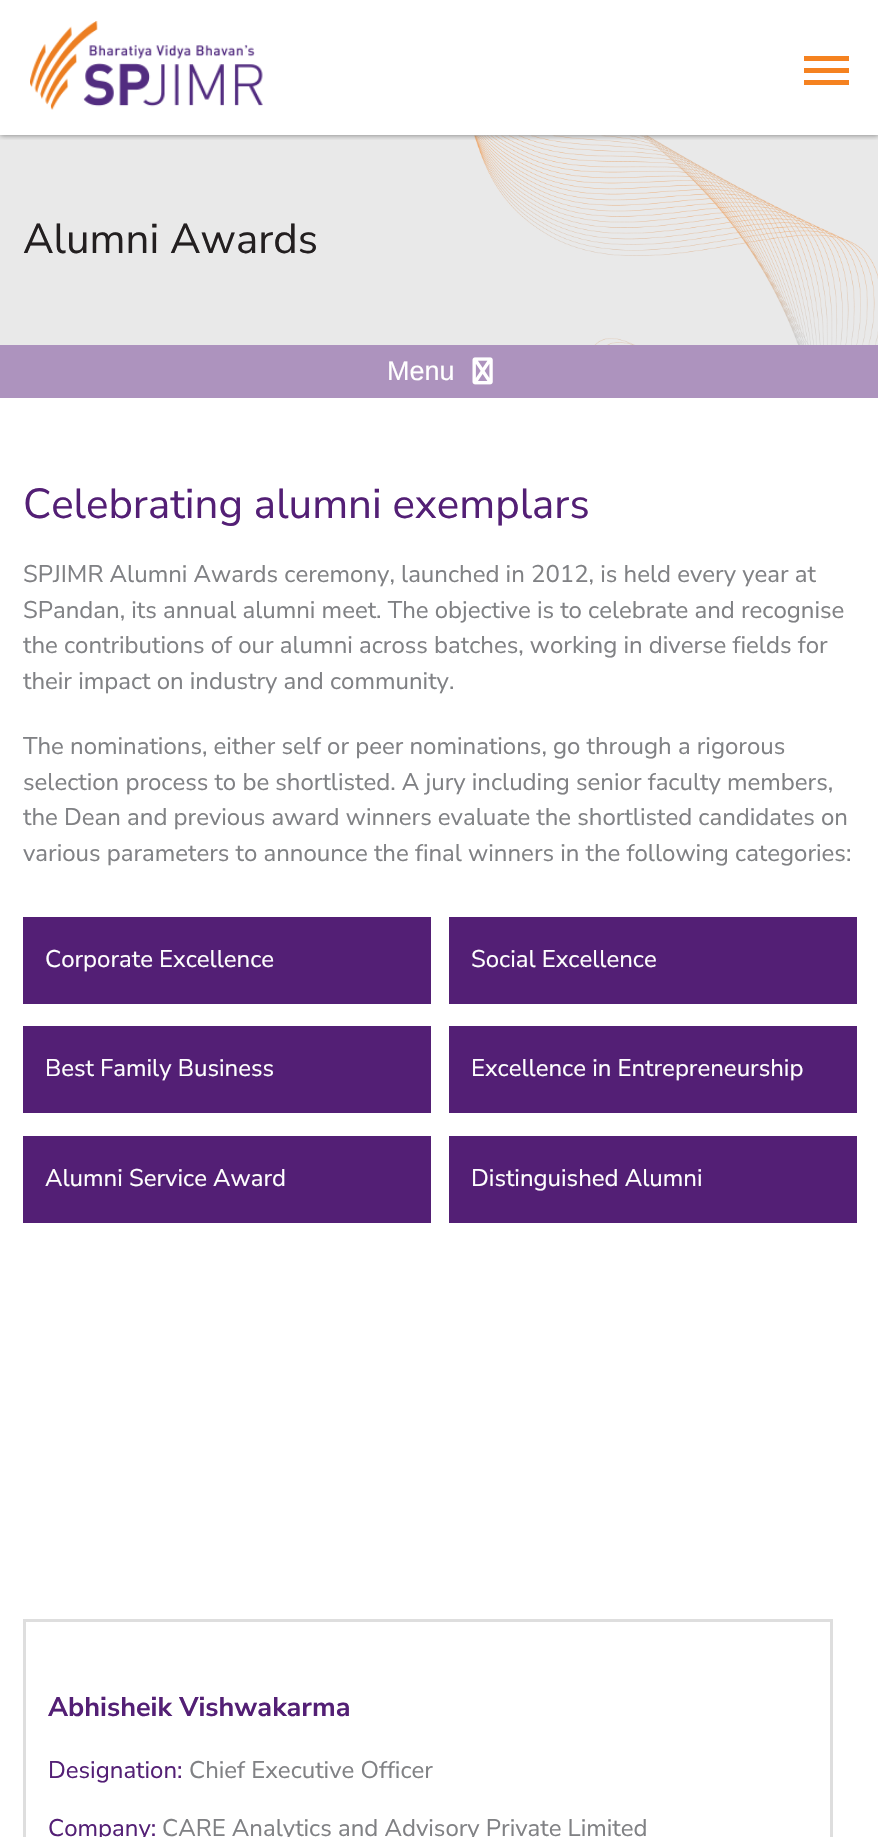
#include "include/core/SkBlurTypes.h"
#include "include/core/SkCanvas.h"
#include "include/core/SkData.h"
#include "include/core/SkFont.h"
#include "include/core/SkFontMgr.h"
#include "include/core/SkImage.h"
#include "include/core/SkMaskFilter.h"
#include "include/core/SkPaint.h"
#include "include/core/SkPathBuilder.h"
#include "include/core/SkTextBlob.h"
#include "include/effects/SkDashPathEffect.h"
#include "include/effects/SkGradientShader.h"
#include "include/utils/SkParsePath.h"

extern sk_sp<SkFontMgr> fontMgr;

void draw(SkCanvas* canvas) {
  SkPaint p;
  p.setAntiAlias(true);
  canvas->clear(SK_ColorWHITE);
  p.setColor(SkColorSetRGB(233, 233, 233));
  canvas->drawRect(SkRect::MakeLTRB(0, 135, 878, 345), p);
  canvas->drawImageRect(SkImages::DeferredFromEncodedData(SkData::MakeFromFileName("images/2.png")), SkRect::MakeLTRB(474, 135, 878, 345), SkSamplingOptions());
  canvas->save();
  canvas->clipRect(SkRect::MakeLTRB(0, 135, 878, 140));
  p.setColor(SkColorSetARGB(128, 0, 0, 0));
  p.setMaskFilter(SkMaskFilter::MakeBlur(kNormal_SkBlurStyle, 3));
  canvas->drawRect(SkRect::MakeLTRB(0, 0, 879, 135), p);
  p.setMaskFilter(nullptr);
  canvas->restore();
  canvas->drawImageRect(SkImages::DeferredFromEncodedData(SkData::MakeFromFileName("images/1.png")), SkRect::MakeLTRB(30, 21, 263, 110), SkSamplingOptions());
  p.setColor(SkColorSetRGB(245, 130, 32));
  canvas->drawRect(SkRect::MakeLTRB(804, 68, 849, 73), p);
  canvas->drawRect(SkRect::MakeLTRB(804, 56, 849, 61), p);
  canvas->drawRect(SkRect::MakeLTRB(804, 80, 849, 85), p);
  p.setColor(SkColorSetRGB(173, 147, 190));
  canvas->drawRect(SkRect::MakeLTRB(0, 345, 878, 398), p);
  canvas->drawImageRect(SkImages::DeferredFromEncodedData(SkData::MakeFromFileName("images/3.png")), SkRect::MakeLTRB(472, 357, 493, 385), SkSamplingOptions());
  p.setColor(SkColorSetRGB(83, 31, 117));
  canvas->drawRect(SkRect::MakeLTRB(23, 917, 431, 1004), p);
  canvas->drawRect(SkRect::MakeLTRB(449, 917, 857, 1004), p);
  canvas->drawRect(SkRect::MakeLTRB(23, 1026, 431, 1113), p);
  canvas->drawRect(SkRect::MakeLTRB(449, 1026, 857, 1113), p);
  canvas->drawRect(SkRect::MakeLTRB(23, 1136, 431, 1223), p);
  canvas->drawRect(SkRect::MakeLTRB(449, 1136, 857, 1223), p);
  p.setStyle(SkPaint::kStroke_Style);
  p.setStrokeWidth(3);
  p.setColor(SkColorSetRGB(222, 222, 222));
  canvas->drawRect(SkRect::MakeLTRB(24.5f, 1620.5f, 831.5f, 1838.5f), p);
  SkFont font1(fontMgr->matchFamilyStyle("Nunito Sans", SkFontStyle::Normal()), 42);
  font1.setSubpixel(true);
  p.setStyle(SkPaint::kFill_Style);
  p.setColor(SkColorSetRGB(35, 31, 32));
  canvas->drawString("Alumni Awards", 23, 253, font1, p);
  SkFont font2(fontMgr->matchFamilyStyle("Liberation Sans", SkFontStyle::Normal()), 27);
  font2.setSubpixel(true);
  p.setColor(SK_ColorWHITE);
  canvas->drawString("Menu", 387, 380, font2, p);
  p.setColor(SkColorSetRGB(83, 31, 117));
  canvas->drawString("Celebrating alumni exemplars", 23, 518, font1, p);
  SkFont font3(fontMgr->matchFamilyStyle("Nunito Sans", SkFontStyle::Normal()), 24);
  font3.setSubpixel(true);
  p.setColor(SkColorSetRGB(128, 129, 132));
  canvas->drawString("SPJIMR Alumni Awards ceremony, launched in 2012, is held every year at", 23, 582, font3, p);
  canvas->drawString("SPandan, its annual alumni meet. The objective is to celebrate and recognise", 23, 618, font3, p);
  canvas->drawString("the contributions of our alumni across batches, working in diverse fields for", 23, 653, font3, p);
  canvas->drawString("their impact on industry and community.", 23, 689, font3, p);
  canvas->drawString("The nominations, either self or peer nominations, go through a rigorous", 23, 754, font3, p);
  canvas->drawString("selection process to be shortlisted. A jury including senior faculty members,", 23, 790, font3, p);
  canvas->drawString("the Dean and previous award winners evaluate the shortlisted candidates on", 23, 825, font3, p);
  canvas->drawString("various parameters to announce the final winners in the following categories:", 23, 861, font3, p);
  p.setColor(SK_ColorWHITE);
  canvas->drawString("Corporate Excellence", 45, 967, font3, p);
  canvas->drawString("Social Excellence", 471, 967, font3, p);
  canvas->drawString("Best Family Business", 45, 1076, font3, p);
  canvas->drawString("Excellence in Entrepreneurship", 471, 1076, font3, p);
  canvas->drawString("Alumni Service Award", 45, 1186, font3, p);
  canvas->drawString("Distinguished Alumni", 471, 1186, font3, p);
  SkFont font4(fontMgr->matchFamilyStyle("Nunito Sans", SkFontStyle::Bold()), 27);
  font4.setSubpixel(true);
  p.setColor(SkColorSetRGB(83, 31, 117));
  canvas->drawString("Abhisheik Vishwakarma", 48, 1716, font4, p);
  canvas->drawString("Designation:", 48, 1778, font3, p);
  p.setColor(SkColorSetRGB(128, 129, 132));
  canvas->drawString("Chief Executive Officer", 189, 1778, font3, p);
  p.setColor(SkColorSetRGB(83, 31, 117));
  canvas->drawString("Company:", 48, 1836, font3, p);
  p.setColor(SkColorSetRGB(128, 129, 132));
  canvas->drawString("CARE Analytics and Advisory Private Limited", 162, 1836, font3, p);
}
